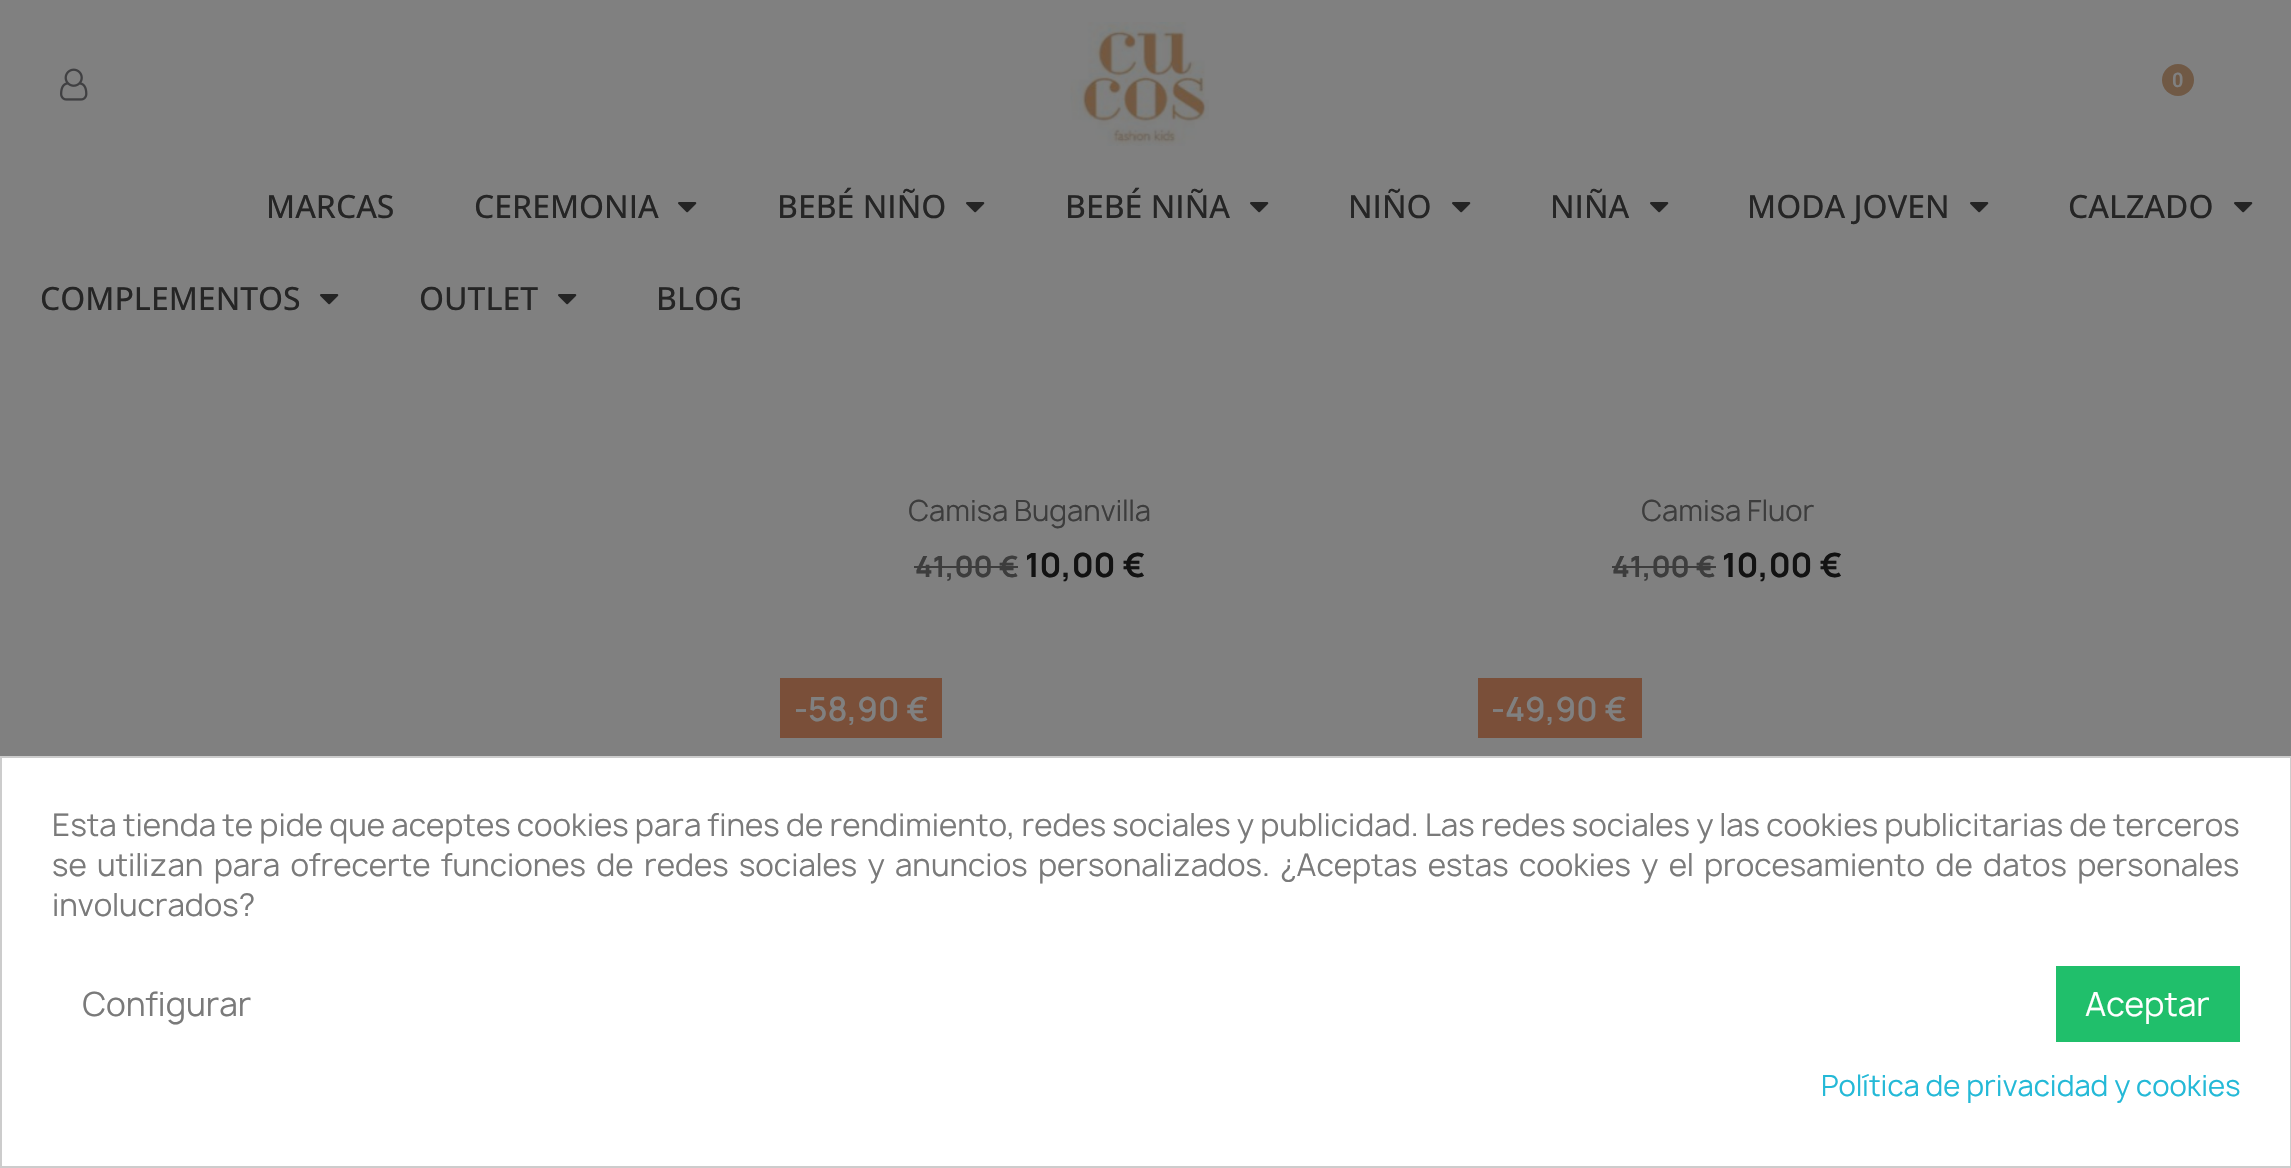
#include "include/core/SkBlurTypes.h"
#include "include/core/SkCanvas.h"
#include "include/core/SkData.h"
#include "include/core/SkFont.h"
#include "include/core/SkFontMgr.h"
#include "include/core/SkImage.h"
#include "include/core/SkMaskFilter.h"
#include "include/core/SkPaint.h"
#include "include/core/SkPathBuilder.h"
#include "include/core/SkTextBlob.h"
#include "include/effects/SkDashPathEffect.h"
#include "include/effects/SkGradientShader.h"
#include "include/utils/SkParsePath.h"

extern sk_sp<SkFontMgr> fontMgr;

void draw(SkCanvas* canvas) {
  SkPaint p;
  p.setAntiAlias(true);
  auto spacedText = [&](const char* s, float x, float y, const SkFont& font, const SkPaint& ink, float letter, float word) {
    std::vector<SkGlyphID> glyphs(font.countText(s, strlen(s), SkTextEncoding::kUTF8));
    std::vector<float> xs(glyphs.size());
    font.textToGlyphs(s, strlen(s), SkTextEncoding::kUTF8, glyphs);
    font.getXPos(glyphs, xs, x);
    float extra = 0;
    for (size_t i = 0; i < glyphs.size(); i++) {
      xs[i] += extra;
      extra += letter + word * (glyphs[i] == font.unicharToGlyph(' '));
    }
    canvas->drawTextBlob(SkTextBlob::MakeFromPosHGlyphs(glyphs, xs, y, font), 0, 0, ink);
  };
  canvas->clear(SkColorSetRGB(128, 128, 128));
  canvas->drawImageRect(SkImages::DeferredFromEncodedData(SkData::MakeFromFileName("images/1.png")), SkRect::MakeLTRB(60, 68, 88, 101), SkSamplingOptions());
  canvas->drawImageRect(SkImages::DeferredFromEncodedData(SkData::MakeFromFileName("images/2.png")), SkRect::MakeLTRB(1070, 22, 1209, 146), SkSamplingOptions());
  p.setColor(SkColorSetRGB(112, 89, 69));
  canvas->drawCircle(2178, 80, 16, p);
  canvas->drawImageRect(SkImages::DeferredFromEncodedData(SkData::MakeFromFileName("images/3.png")), SkRect::MakeLTRB(678, 202, 697, 213), SkSamplingOptions());
  canvas->drawImageRect(SkImages::DeferredFromEncodedData(SkData::MakeFromFileName("images/3.png")), SkRect::MakeLTRB(966, 202, 985, 213), SkSamplingOptions());
  canvas->drawImageRect(SkImages::DeferredFromEncodedData(SkData::MakeFromFileName("images/3.png")), SkRect::MakeLTRB(1250, 202, 1269, 213), SkSamplingOptions());
  canvas->drawImageRect(SkImages::DeferredFromEncodedData(SkData::MakeFromFileName("images/3.png")), SkRect::MakeLTRB(1452, 202, 1471, 213), SkSamplingOptions());
  canvas->drawImageRect(SkImages::DeferredFromEncodedData(SkData::MakeFromFileName("images/3.png")), SkRect::MakeLTRB(1650, 202, 1669, 213), SkSamplingOptions());
  canvas->drawImageRect(SkImages::DeferredFromEncodedData(SkData::MakeFromFileName("images/3.png")), SkRect::MakeLTRB(1970, 202, 1989, 213), SkSamplingOptions());
  canvas->drawImageRect(SkImages::DeferredFromEncodedData(SkData::MakeFromFileName("images/3.png")), SkRect::MakeLTRB(2234, 202, 2253, 213), SkSamplingOptions());
  canvas->drawImageRect(SkImages::DeferredFromEncodedData(SkData::MakeFromFileName("images/3.png")), SkRect::MakeLTRB(320, 294, 339, 305), SkSamplingOptions());
  canvas->drawImageRect(SkImages::DeferredFromEncodedData(SkData::MakeFromFileName("images/3.png")), SkRect::MakeLTRB(558, 294, 577, 305), SkSamplingOptions());
  p.setColor(SkColorSetRGB(61, 61, 61));
  canvas->drawRect(SkRect::MakeLTRB(914, 566, 1018, 568), p);
  canvas->drawRect(SkRect::MakeLTRB(1612, 566, 1716, 568), p);
  p.setColor(SkColorSetRGB(122, 79, 57));
  canvas->drawRect(SkRect::MakeLTRB(780, 678, 942, 738), p);
  canvas->drawRect(SkRect::MakeLTRB(1478, 678, 1642, 738), p);
  p.setColor(SK_ColorWHITE);
  canvas->drawRect(SkRect::MakeLTRB(1, 757, 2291, 1167), p);
  p.setStyle(SkPaint::kStroke_Style);
  p.setStrokeWidth(2);
  p.setColor(SkColorSetRGB(204, 204, 204));
  canvas->drawRect(SkRect::MakeLTRB(1, 757, 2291, 1167), p);
  p.setStyle(SkPaint::kFill_Style);
  p.setColor(SkColorSetRGB(32, 191, 107));
  canvas->drawRect(SkRect::MakeLTRB(2056, 966, 2240, 1042), p);
  SkFont font1(fontMgr->matchFamilyStyle("Roboto", SkFontStyle(600, SkFontStyle::kNormal_Width, SkFontStyle::kUpright_Slant)), 20);
  font1.setSubpixel(true);
  p.setColor(SkColorSetRGB(128, 128, 128));
  canvas->drawString("0", 2172, 87, font1, p);
  SkFont font2(fontMgr->matchFamilyStyle("Open Sans", SkFontStyle(500, SkFontStyle::kNormal_Width, SkFontStyle::kUpright_Slant)), 32);
  font2.setSubpixel(true);
  p.setColor(SkColorSetRGB(37, 37, 37));
  canvas->drawString("MARCAS", 266, 218, font2, p);
  canvas->drawString("CEREMONIA", 474, 218, font2, p);
  canvas->drawString("BEBÉ NIÑO", 777, 218, font2, p);
  canvas->drawString("BEBÉ NIÑA", 1065, 218, font2, p);
  canvas->drawString("NIÑO", 1348, 218, font2, p);
  canvas->drawString("NIÑA", 1550, 218, font2, p);
  canvas->drawString("MODA JOVEN", 1747, 218, font2, p);
  canvas->drawString("CALZADO", 2068, 218, font2, p);
  canvas->drawString("COMPLEMENTOS", 40, 310, font2, p);
  canvas->drawString("OUTLET", 419, 310, font2, p);
  canvas->drawString("BLOG", 656, 310, font2, p);
  SkFont font3(fontMgr->matchFamilyStyle("Manrope", SkFontStyle::Normal()), 28);
  font3.setSubpixel(true);
  p.setColor(SkColorSetRGB(61, 61, 61));
  canvas->drawString("Camisa Buganvilla", 908, 521, font3, p);
  SkFont font4(fontMgr->matchFamilyStyle("Manrope", SkFontStyle::Bold()), 28);
  font4.setSubpixel(true);
  canvas->drawString("41,00 €", 915, 577, font4, p);
  SkFont font5(fontMgr->matchFamilyStyle("Manrope", SkFontStyle::Bold()), 32);
  font5.setSubpixel(true);
  p.setColor(SkColorSetRGB(18, 18, 18));
  canvas->drawString("10,00 €", 1025, 577, font5, p);
  p.setColor(SkColorSetRGB(61, 61, 61));
  canvas->drawString("Camisa Fluor", 1641, 521, font3, p);
  canvas->drawString("41,00 €", 1612, 577, font4, p);
  p.setColor(SkColorSetRGB(18, 18, 18));
  canvas->drawString("10,00 €", 1722, 577, font5, p);
  SkFont font6(fontMgr->matchFamilyStyle("Manrope", SkFontStyle(600, SkFontStyle::kNormal_Width, SkFontStyle::kUpright_Slant)), 32);
  font6.setSubpixel(true);
  p.setColor(SkColorSetRGB(128, 128, 128));
  canvas->drawString("-58,90 €", 794, 721, font6, p);
  canvas->drawString("-49,90 €", 1491, 721, font6, p);
  SkFont font7(fontMgr->matchFamilyStyle("Manrope", SkFontStyle::Normal()), 30);
  font7.setSubpixel(true);
  p.setColor(SkColorSetRGB(122, 122, 122));
  canvas->drawString("Esta tienda te pide que aceptes cookies para fines de rendimiento, redes sociales y publicidad. Las redes sociales y las cookies publicitarias de terceros", 52, 836, font7, p);
  spacedText("se utilizan para ofrecerte funciones de redes sociales y anuncios personalizados. ¿Aceptas estas cookies y el procesamiento de datos personales", 52, 876, font7, p, 0, 4.1f);
  canvas->drawString("involucrados?", 52, 916, font7, p);
  SkFont font8(fontMgr->matchFamilyStyle("Manrope", SkFontStyle::Normal()), 32);
  font8.setSubpixel(true);
  canvas->drawString("Configurar", 82, 1016, font8, p);
  p.setColor(SK_ColorWHITE);
  canvas->drawString("Aceptar", 2085, 1016, font8, p);
  p.setColor(SkColorSetRGB(36, 185, 215));
  canvas->drawString("Política de privacidad y cookies", 1821, 1096, font3, p);
}
